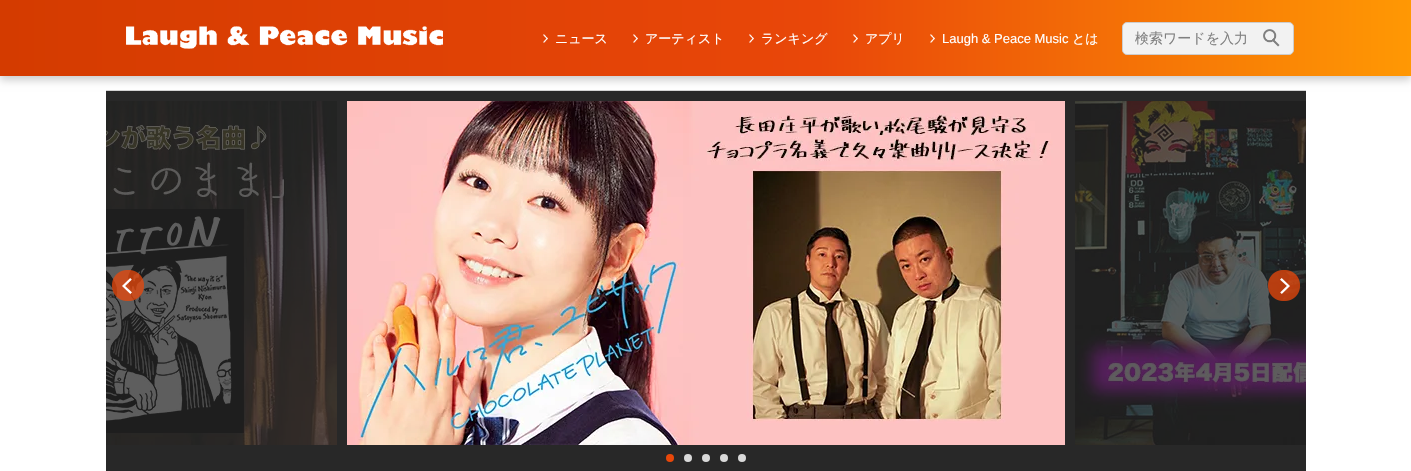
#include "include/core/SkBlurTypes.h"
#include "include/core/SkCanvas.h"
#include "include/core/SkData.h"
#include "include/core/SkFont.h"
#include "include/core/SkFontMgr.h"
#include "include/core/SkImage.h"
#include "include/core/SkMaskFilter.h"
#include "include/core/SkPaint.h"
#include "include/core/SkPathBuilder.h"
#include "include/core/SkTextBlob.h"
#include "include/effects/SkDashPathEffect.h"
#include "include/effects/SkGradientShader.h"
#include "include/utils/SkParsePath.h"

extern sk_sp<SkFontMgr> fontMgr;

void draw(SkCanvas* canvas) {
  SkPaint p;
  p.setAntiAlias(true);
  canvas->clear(SK_ColorWHITE);
  p.setColor(SkColorSetRGB(40, 40, 40));
  canvas->drawRect(SkRect::MakeLTRB(106, 91, 1306, 471), p);
  p.setColor(SkColorSetRGB(213, 213, 213));
  canvas->drawRect(SkRect::MakeLTRB(106, 90, 1306, 91), p);
  p.setColor(SkColorSetARGB(51, 0, 0, 0));
  p.setMaskFilter(SkMaskFilter::MakeBlur(kNormal_SkBlurStyle, 4));
  canvas->drawRect(SkRect::MakeLTRB(0, 4, 1411, 80), p);
  p.setMaskFilter(nullptr);
  {
    const SkColor colors[] = {SkColorSetRGB(212, 59, 0), SkColorSetRGB(233, 71, 9), SkColorSetRGB(255, 152, 4)};
    const float stops[] = {0, 0.58f, 1};
    const SkPoint ends[] = {{0, 38}, {1411, 38}};
    p.setShader(SkGradientShader::MakeLinear(ends, colors, stops, 3, SkTileMode::kClamp));
    p.setAlpha(255);
  }
  canvas->drawRect(SkRect::MakeLTRB(0, 0, 1411, 76), p);
  canvas->drawImageRect(SkImages::DeferredFromEncodedData(SkData::MakeFromFileName("images/1.png")), SkRect::MakeLTRB(126, 26, 443, 49), SkSamplingOptions());
  canvas->drawImageRect(SkImages::DeferredFromEncodedData(SkData::MakeFromFileName("images/2.png")), SkRect::MakeLTRB(543, 34, 548, 43), SkSamplingOptions());
  canvas->drawImageRect(SkImages::DeferredFromEncodedData(SkData::MakeFromFileName("images/3.png")), SkRect::MakeLTRB(633, 34, 638, 43), SkSamplingOptions());
  canvas->drawImageRect(SkImages::DeferredFromEncodedData(SkData::MakeFromFileName("images/4.png")), SkRect::MakeLTRB(749, 34, 754, 43), SkSamplingOptions());
  canvas->drawImageRect(SkImages::DeferredFromEncodedData(SkData::MakeFromFileName("images/5.png")), SkRect::MakeLTRB(853, 34, 858, 43), SkSamplingOptions());
  canvas->drawImageRect(SkImages::DeferredFromEncodedData(SkData::MakeFromFileName("images/6.png")), SkRect::MakeLTRB(930, 34, 935, 43), SkSamplingOptions());
  p.setShader(nullptr);
  p.setColor(SkColorSetRGB(242, 242, 242));
  canvas->drawRoundRect(SkRect::MakeLTRB(1122.5f, 22.5f, 1293.5f, 54.5f), 4.5f, 4.5f, p);
  p.setStyle(SkPaint::kStroke_Style);
  p.setStrokeWidth(1);
  p.setColor(SkColorSetRGB(205, 205, 205));
  canvas->drawRoundRect(SkRect::MakeLTRB(1122.5f, 22.5f, 1293.5f, 54.5f), 4.5f, 4.5f, p);
  canvas->drawImageRect(SkImages::DeferredFromEncodedData(SkData::MakeFromFileName("images/7.png")), SkRect::MakeLTRB(1263, 29, 1280, 47), SkSamplingOptions());
  canvas->drawImageRect(SkImages::DeferredFromEncodedData(SkData::MakeFromFileName("images/8.png")), SkRect::MakeLTRB(106, 101, 337, 445), SkSamplingOptions());
  canvas->drawImageRect(SkImages::DeferredFromEncodedData(SkData::MakeFromFileName("images/9.png")), SkRect::MakeLTRB(347, 101, 1065, 445), SkSamplingOptions());
  canvas->drawImageRect(SkImages::DeferredFromEncodedData(SkData::MakeFromFileName("images/10.png")), SkRect::MakeLTRB(1075, 101, 1306, 445), SkSamplingOptions());
  canvas->drawImageRect(SkImages::DeferredFromEncodedData(SkData::MakeFromFileName("images/11.png")), SkRect::MakeLTRB(112, 270, 144, 301), SkSamplingOptions());
  canvas->drawImageRect(SkImages::DeferredFromEncodedData(SkData::MakeFromFileName("images/12.png")), SkRect::MakeLTRB(1268, 270, 1300, 301), SkSamplingOptions());
  p.setStyle(SkPaint::kFill_Style);
  p.setColor(SkColorSetRGB(233, 71, 9));
  canvas->drawCircle(670, 458, 4, p);
  p.setColor(SkColorSetRGB(217, 217, 217));
  canvas->drawCircle(688, 458, 4, p);
  canvas->drawCircle(706, 458, 4, p);
  canvas->drawCircle(724, 458, 4, p);
  canvas->drawCircle(742, 458, 4, p);
  SkFont font1(fontMgr->matchFamilyStyle("WenQuanYi Zen Hei", SkFontStyle(500, SkFontStyle::kNormal_Width, SkFontStyle::kUpright_Slant)), 13);
  font1.setSubpixel(true);
  p.setColor(SK_ColorWHITE);
  canvas->drawString("ニュース", 555, 43, font1, p);
  canvas->drawString("アーティスト", 645, 43, font1, p);
  canvas->drawString("ランキング", 761, 43, font1, p);
  canvas->drawString("アプリ", 865, 43, font1, p);
  SkFont font2(fontMgr->matchFamilyStyle("Liberation Sans", SkFontStyle::Normal()), 13);
  font2.setSubpixel(true);
  canvas->drawString("Laugh & Peace Music", 942, 43, font2, p);
  canvas->drawString("とは", 1072, 43, font1, p);
  SkFont font3(fontMgr->matchFamilyStyle("WenQuanYi Zen Hei", SkFontStyle(500, SkFontStyle::kNormal_Width, SkFontStyle::kUpright_Slant)), 14);
  font3.setSubpixel(true);
  p.setColor(SkColorSetRGB(128, 128, 128));
  canvas->drawString("検索ワードを入力", 1135, 43, font3, p);
}
